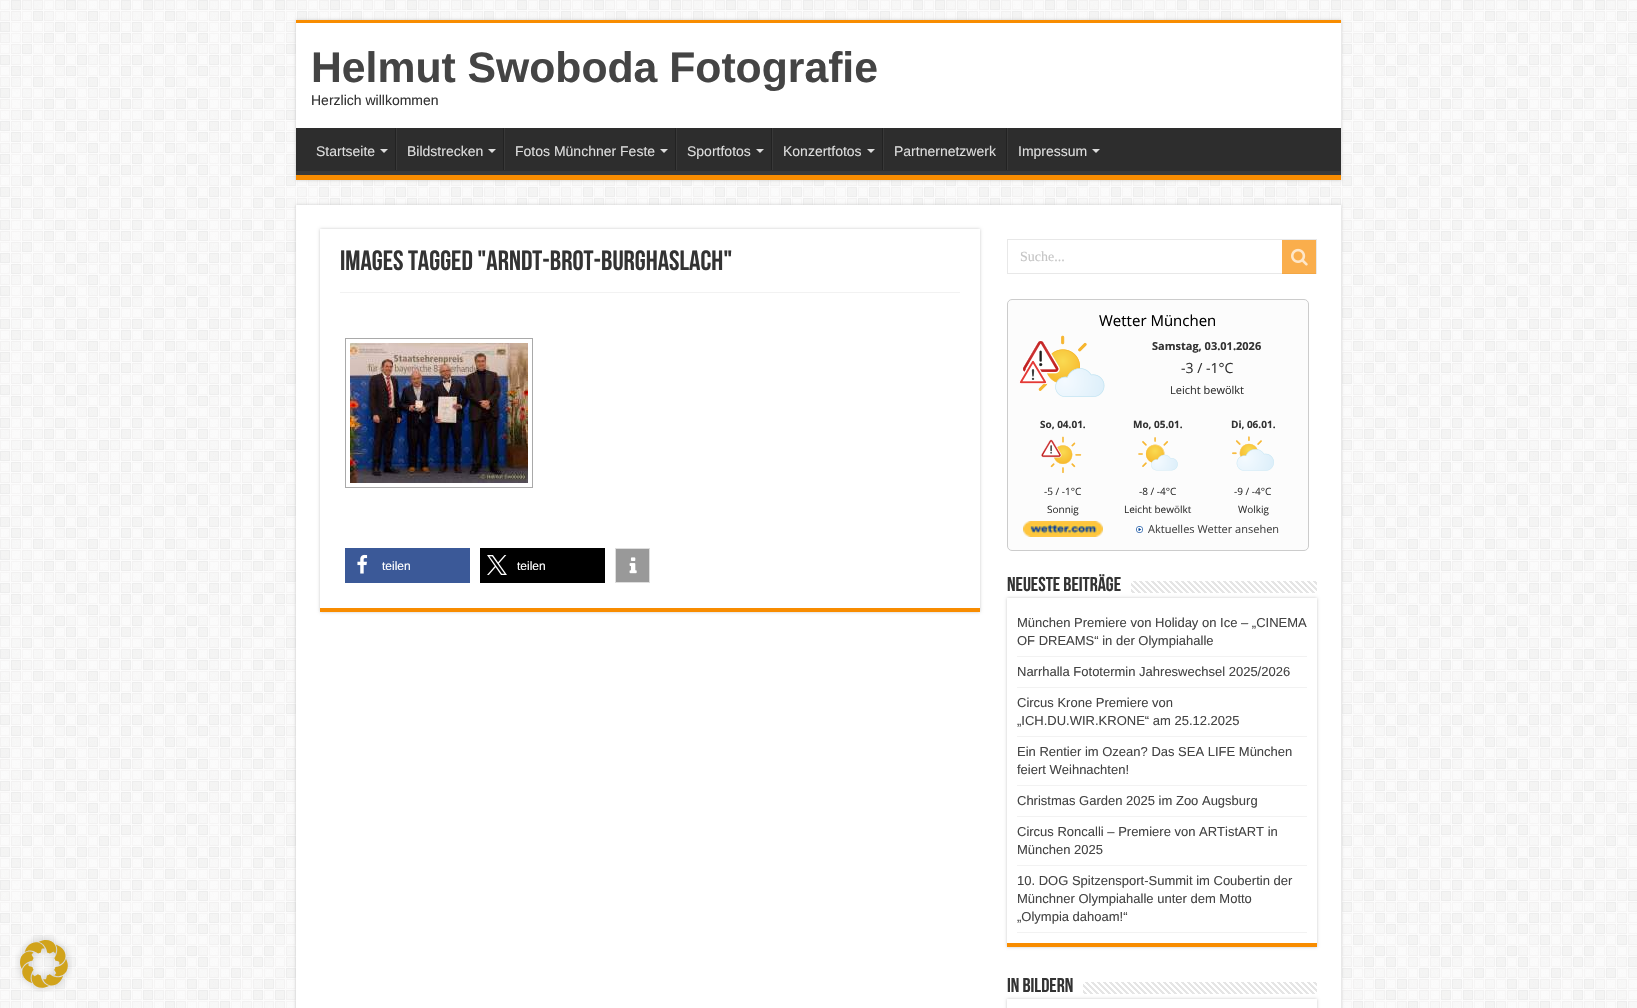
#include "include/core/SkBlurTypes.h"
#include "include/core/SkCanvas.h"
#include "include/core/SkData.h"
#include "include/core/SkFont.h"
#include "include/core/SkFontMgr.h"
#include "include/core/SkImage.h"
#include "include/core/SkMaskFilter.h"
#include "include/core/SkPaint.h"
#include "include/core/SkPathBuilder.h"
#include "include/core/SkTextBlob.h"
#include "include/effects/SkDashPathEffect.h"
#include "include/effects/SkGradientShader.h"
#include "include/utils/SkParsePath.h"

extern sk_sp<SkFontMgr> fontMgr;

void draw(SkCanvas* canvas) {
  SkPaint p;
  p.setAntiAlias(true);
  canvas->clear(SK_ColorWHITE);
  canvas->drawImageRect(SkImages::DeferredFromEncodedData(SkData::MakeFromFileName("images/1.png")), SkRect::MakeLTRB(0, 0, 1637, 1008), SkSamplingOptions());
  canvas->drawImageRect(SkImages::DeferredFromEncodedData(SkData::MakeFromFileName("images/2.png")), SkRect::MakeLTRB(15, 935, 72, 992), SkSamplingOptions());
  p.setColor(SkColorSetRGB(202, 202, 202));
  p.setMaskFilter(SkMaskFilter::MakeBlur(kNormal_SkBlurStyle, 1.5f));
  canvas->drawRect(SkRect::MakeLTRB(296, 20, 1341, 180), p);
  p.setMaskFilter(nullptr);
  p.setColor(SK_ColorWHITE);
  canvas->drawRect(SkRect::MakeLTRB(296, 23, 1341, 128), p);
  p.setColor(SkColorSetRGB(248, 140, 0));
  canvas->drawRect(SkRect::MakeLTRB(296, 20, 1341, 23), p);
  p.setColor(SkColorSetRGB(45, 45, 45));
  canvas->drawRect(SkRect::MakeLTRB(296, 128, 1341, 171), p);
  canvas->save();
  canvas->clipRect(SkRect::MakeLTRB(296, 128, 1341, 175));
  p.setColor(SkColorSetRGB(57, 57, 57));
  canvas->drawPath(SkPathBuilder(SkPathFillType::kEvenOdd).moveTo(197, 29).lineTo(1440, 29).lineTo(1440, 274).lineTo(197, 274).close().moveTo(295, 122).lineTo(1341, 122).lineTo(1341, 162).cubicTo(1341, 163, 1342, 171, 1340, 171).lineTo(295, 171).lineTo(294, 170).lineTo(294, 122).close().detach(), p);
  canvas->restore();
  p.setColor(SkColorSetRGB(248, 140, 0));
  canvas->drawRect(SkRect::MakeLTRB(296, 175, 1341, 180), p);
  p.setColor(SkColorSetRGB(221, 221, 221));
  canvas->drawPath(SkPathBuilder().moveTo(380, 149).lineTo(388, 149).lineTo(384, 153).close().detach(), p);
  p.setColor(SkColorSetRGB(34, 34, 34));
  canvas->drawRect(SkRect::MakeLTRB(395, 128, 396, 170), p);
  p.setColor(SkColorSetRGB(56, 56, 56));
  canvas->drawRect(SkRect::MakeLTRB(396, 128, 397, 170), p);
  p.setColor(SkColorSetRGB(221, 221, 221));
  canvas->drawPath(SkPathBuilder().moveTo(488, 149).lineTo(496, 149).lineTo(492, 153).close().detach(), p);
  p.setColor(SkColorSetRGB(34, 34, 34));
  canvas->drawRect(SkRect::MakeLTRB(503, 128, 504, 170), p);
  p.setColor(SkColorSetRGB(56, 56, 56));
  canvas->drawRect(SkRect::MakeLTRB(504, 128, 505, 170), p);
  p.setColor(SkColorSetRGB(221, 221, 221));
  canvas->drawPath(SkPathBuilder().moveTo(660, 149).lineTo(668, 149).lineTo(664, 153).close().detach(), p);
  p.setColor(SkColorSetRGB(34, 34, 34));
  canvas->drawRect(SkRect::MakeLTRB(675, 128, 676, 170), p);
  p.setColor(SkColorSetRGB(56, 56, 56));
  canvas->drawRect(SkRect::MakeLTRB(676, 128, 677, 170), p);
  p.setColor(SkColorSetRGB(221, 221, 221));
  canvas->drawPath(SkPathBuilder().moveTo(756, 149).lineTo(764, 149).lineTo(760, 153).close().detach(), p);
  p.setColor(SkColorSetRGB(34, 34, 34));
  canvas->drawRect(SkRect::MakeLTRB(771, 128, 772, 170), p);
  p.setColor(SkColorSetRGB(56, 56, 56));
  canvas->drawRect(SkRect::MakeLTRB(772, 128, 773, 170), p);
  p.setColor(SkColorSetRGB(221, 221, 221));
  canvas->drawPath(SkPathBuilder().moveTo(867, 149).lineTo(875, 149).lineTo(871, 153).close().detach(), p);
  p.setColor(SkColorSetRGB(34, 34, 34));
  canvas->drawRect(SkRect::MakeLTRB(882, 128, 883, 170), p);
  p.setColor(SkColorSetRGB(56, 56, 56));
  canvas->drawRect(SkRect::MakeLTRB(883, 128, 884, 170), p);
  p.setColor(SkColorSetRGB(34, 34, 34));
  canvas->drawRect(SkRect::MakeLTRB(1006, 128, 1007, 170), p);
  p.setColor(SkColorSetRGB(56, 56, 56));
  canvas->drawRect(SkRect::MakeLTRB(1007, 128, 1008, 170), p);
  p.setColor(SkColorSetRGB(221, 221, 221));
  canvas->drawPath(SkPathBuilder().moveTo(1092, 149).lineTo(1100, 149).lineTo(1096, 153).close().detach(), p);
  p.setColor(SkColorSetRGB(202, 202, 202));
  p.setMaskFilter(SkMaskFilter::MakeBlur(kNormal_SkBlurStyle, 1.5f));
  canvas->drawRect(SkRect::MakeLTRB(296, 205, 1341, 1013), p);
  p.setMaskFilter(nullptr);
  p.setColor(SK_ColorWHITE);
  canvas->drawRect(SkRect::MakeLTRB(296, 205, 1341, 1008), p);
  canvas->save();
  canvas->clipPath(SkPathBuilder(SkPathFillType::kEvenOdd).moveTo(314, 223).lineTo(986, 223).lineTo(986, 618).lineTo(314, 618).close().moveTo(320, 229).lineTo(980, 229).lineTo(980, 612).lineTo(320, 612).close().detach(), true);
  p.setColor(SkColorSetRGB(202, 202, 202));
  p.setMaskFilter(SkMaskFilter::MakeBlur(kNormal_SkBlurStyle, 1.5f));
  canvas->drawRect(SkRect::MakeLTRB(320, 229, 980, 612), p);
  p.setMaskFilter(nullptr);
  canvas->restore();
  p.setColor(SkColorSetRGB(248, 140, 0));
  canvas->drawRect(SkRect::MakeLTRB(320, 608, 980, 612), p);
  p.setColor(SkColorSetRGB(242, 242, 242));
  canvas->drawRect(SkRect::MakeLTRB(340, 292, 960, 293), p);
  p.setStyle(SkPaint::kStroke_Style);
  p.setStrokeWidth(1);
  p.setColor(SkColorSetRGB(169, 169, 169));
  canvas->drawRect(SkRect::MakeLTRB(345.5f, 338.5f, 532.5f, 487.5f), p);
  canvas->drawImageRect(SkImages::DeferredFromEncodedData(SkData::MakeFromFileName("images/3.png")), SkRect::MakeLTRB(350, 343, 528, 483), SkSamplingOptions());
  p.setStyle(SkPaint::kFill_Style);
  p.setColor(SkColorSetRGB(59, 89, 152));
  canvas->drawRect(SkRect::MakeLTRB(345, 548, 470, 583), p);
  canvas->drawImageRect(SkImages::DeferredFromEncodedData(SkData::MakeFromFileName("images/4.png")), SkRect::MakeLTRB(357, 554, 368, 574), SkSamplingOptions());
  p.setColor(SK_ColorBLACK);
  canvas->drawRect(SkRect::MakeLTRB(480, 548, 605, 583), p);
  canvas->drawImageRect(SkImages::DeferredFromEncodedData(SkData::MakeFromFileName("images/5.png")), SkRect::MakeLTRB(487, 555, 507, 575), SkSamplingOptions());
  p.setColor(SkColorSetRGB(153, 153, 153));
  canvas->drawRect(SkRect::MakeLTRB(615.5f, 548.5f, 649.5f, 582.5f), p);
  p.setStyle(SkPaint::kStroke_Style);
  p.setColor(SkColorSetRGB(221, 221, 221));
  canvas->drawRect(SkRect::MakeLTRB(615.5f, 548.5f, 649.5f, 582.5f), p);
  canvas->drawImageRect(SkImages::DeferredFromEncodedData(SkData::MakeFromFileName("images/6.png")), SkRect::MakeLTRB(629, 557, 637, 574), SkSamplingOptions());
  p.setColor(SkColorSetRGB(232, 232, 232));
  canvas->drawRect(SkRect::MakeLTRB(1007.5f, 239.5f, 1316.5f, 273.5f), p);
  p.setStyle(SkPaint::kFill_Style);
  p.setColor(SkColorSetARGB(179, 248, 140, 0));
  canvas->drawRect(SkRect::MakeLTRB(1282, 240, 1316, 274), p);
  canvas->drawImageRect(SkImages::DeferredFromEncodedData(SkData::MakeFromFileName("images/7.png")), SkRect::MakeLTRB(1291, 248, 1308, 266), SkSamplingOptions());
  p.setColor(SkColorSetRGB(252, 252, 252));
  canvas->drawRoundRect(SkRect::MakeLTRB(1007.5f, 299.5f, 1308.5f, 550.5f), 4.5f, 4.5f, p);
  p.setStyle(SkPaint::kStroke_Style);
  p.setColor(SkColorSetRGB(204, 204, 204));
  canvas->drawRoundRect(SkRect::MakeLTRB(1007.5f, 299.5f, 1308.5f, 550.5f), 4.5f, 4.5f, p);
  canvas->drawImageRect(SkImages::DeferredFromEncodedData(SkData::MakeFromFileName("images/8.png")), SkRect::MakeLTRB(1023, 335, 1105, 397), SkSamplingOptions());
  canvas->drawImageRect(SkImages::DeferredFromEncodedData(SkData::MakeFromFileName("images/9.png")), SkRect::MakeLTRB(1019, 360, 1047, 385), SkSamplingOptions());
  canvas->drawImageRect(SkImages::DeferredFromEncodedData(SkData::MakeFromFileName("images/10.png")), SkRect::MakeLTRB(1041, 436, 1082, 473), SkSamplingOptions());
  canvas->drawImageRect(SkImages::DeferredFromEncodedData(SkData::MakeFromFileName("images/11.png")), SkRect::MakeLTRB(1138, 437, 1178, 471), SkSamplingOptions());
  canvas->drawImageRect(SkImages::DeferredFromEncodedData(SkData::MakeFromFileName("images/12.png")), SkRect::MakeLTRB(1232, 436, 1274, 471), SkSamplingOptions());
  canvas->drawImageRect(SkImages::DeferredFromEncodedData(SkData::MakeFromFileName("images/13.png")), SkRect::MakeLTRB(1023, 521, 1103, 537), SkSamplingOptions());
  canvas->drawImageRect(SkImages::DeferredFromEncodedData(SkData::MakeFromFileName("images/14.png")), SkRect::MakeLTRB(1136, 526, 1143, 533), SkSamplingOptions());
  canvas->save();
  canvas->clipPath(SkPathBuilder(SkPathFillType::kEvenOdd).moveTo(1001, 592).lineTo(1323, 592).lineTo(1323, 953).lineTo(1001, 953).close().moveTo(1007, 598).lineTo(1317, 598).lineTo(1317, 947).lineTo(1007, 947).close().detach(), true);
  p.setStyle(SkPaint::kFill_Style);
  p.setColor(SkColorSetRGB(202, 202, 202));
  p.setMaskFilter(SkMaskFilter::MakeBlur(kNormal_SkBlurStyle, 1.5f));
  canvas->drawRect(SkRect::MakeLTRB(1007, 598, 1317, 947), p);
  p.setMaskFilter(nullptr);
  canvas->restore();
  canvas->drawImageRect(SkImages::DeferredFromEncodedData(SkData::MakeFromFileName("images/15.png")), SkRect::MakeLTRB(1131, 581, 1317, 593), SkSamplingOptions());
  p.setColor(SkColorSetRGB(248, 140, 0));
  canvas->drawRect(SkRect::MakeLTRB(1007, 943, 1317, 947), p);
  p.setColor(SkColorSetRGB(242, 242, 242));
  canvas->drawRect(SkRect::MakeLTRB(1017, 656, 1307, 657), p);
  canvas->drawRect(SkRect::MakeLTRB(1017, 687, 1307, 688), p);
  canvas->drawRect(SkRect::MakeLTRB(1017, 736, 1307, 737), p);
  canvas->drawRect(SkRect::MakeLTRB(1017, 785, 1307, 786), p);
  canvas->drawRect(SkRect::MakeLTRB(1017, 816, 1307, 817), p);
  canvas->drawRect(SkRect::MakeLTRB(1017, 865, 1307, 866), p);
  canvas->drawRect(SkRect::MakeLTRB(1017, 932, 1307, 933), p);
  canvas->save();
  canvas->clipPath(SkPathBuilder(SkPathFillType::kEvenOdd).moveTo(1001, 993).lineTo(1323, 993).lineTo(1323, 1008).lineTo(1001, 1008).close().moveTo(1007, 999).lineTo(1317, 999).lineTo(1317, 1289).lineTo(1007, 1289).close().detach(), true);
  p.setColor(SkColorSetRGB(202, 202, 202));
  p.setMaskFilter(SkMaskFilter::MakeBlur(kNormal_SkBlurStyle, 1.5f));
  canvas->drawRect(SkRect::MakeLTRB(1007, 999, 1317, 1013), p);
  p.setMaskFilter(nullptr);
  canvas->restore();
  canvas->drawImageRect(SkImages::DeferredFromEncodedData(SkData::MakeFromFileName("images/16.png")), SkRect::MakeLTRB(1083, 982, 1317, 994), SkSamplingOptions());
  SkFont font1(fontMgr->matchFamilyStyle("Liberation Sans", SkFontStyle::Bold()), 42.7f);
  font1.setSubpixel(true);
  p.setColor(SkColorSetRGB(68, 68, 68));
  canvas->drawString("Helmut Swoboda Fotografie", 311, 82, font1, p);
  SkFont font2(fontMgr->matchFamilyStyle("Liberation Sans", SkFontStyle::Normal()), 14);
  font2.setSubpixel(true);
  p.setColor(SkColorSetRGB(51, 51, 51));
  canvas->drawString("Herzlich willkommen", 311, 105, font2, p);
  p.setColor(SkColorSetRGB(221, 221, 221));
  canvas->drawString("Startseite", 316, 156, font2, p);
  canvas->drawString("Bildstrecken", 407, 156, font2, p);
  canvas->drawString("Fotos Münchner Feste", 515, 156, font2, p);
  canvas->drawString("Sportfotos", 687, 156, font2, p);
  canvas->drawString("Konzertfotos", 783, 156, font2, p);
  canvas->drawString("Partnernetzwerk", 894, 156, font2, p);
  canvas->drawString("Impressum", 1018, 156, font2, p);
  SkFont font3(fontMgr->matchFamilyStyle("Bebas Neue", SkFontStyle::Bold()), 28);
  font3.setSubpixel(true);
  p.setColor(SkColorSetRGB(51, 51, 51));
  canvas->drawString("Images tagged \"arndt-brot-burghaslach\"", 340, 270, font3, p);
  SkFont font4(fontMgr->matchFamilyStyle("Liberation Sans", SkFontStyle::Normal()), 12);
  font4.setSubpixel(true);
  p.setColor(SK_ColorWHITE);
  canvas->drawString("teilen", 382, 570, font4, p);
  canvas->drawString("teilen", 517, 570, font4, p);
  SkFont font5(fontMgr->matchFamilyStyle("Liberation Serif", SkFontStyle::Normal()), 14);
  font5.setSubpixel(true);
  p.setColor(SkColorSetRGB(197, 197, 197));
  canvas->drawString("Suche...", 1020, 261, font5, p);
  SkFont font6(fontMgr->matchFamilyStyle("Open Sans", SkFontStyle::Normal()), 15);
  font6.setSubpixel(true);
  p.setColor(SK_ColorBLACK);
  canvas->drawString("Wetter München", 1099, 326, font6, p);
  SkFont font7(fontMgr->matchFamilyStyle("Open Sans", SkFontStyle::Bold()), 11);
  font7.setSubpixel(true);
  p.setColor(SkColorSetRGB(51, 51, 51));
  canvas->drawString("Samstag, 03.01.2026", 1152, 350, font7, p);
  SkFont font8(fontMgr->matchFamilyStyle("Open Sans", SkFontStyle::Normal()), 14);
  font8.setSubpixel(true);
  canvas->drawString("-3 / -1°C", 1181, 373, font8, p);
  SkFont font9(fontMgr->matchFamilyStyle("Open Sans", SkFontStyle::Normal()), 11);
  font9.setSubpixel(true);
  canvas->drawString("Leicht bewölkt", 1170, 394, font9, p);
  SkFont font10(fontMgr->matchFamilyStyle("Open Sans", SkFontStyle::Bold()), 10);
  font10.setSubpixel(true);
  canvas->drawString("So, 04.01.", 1040, 428, font10, p);
  SkFont font11(fontMgr->matchFamilyStyle("Open Sans", SkFontStyle::Normal()), 10);
  font11.setSubpixel(true);
  canvas->drawString("-5 / -1°C", 1044, 495, font11, p);
  canvas->drawString("Sonnig", 1047, 513, font11, p);
  canvas->drawString("Mo, 05.01.", 1133, 428, font10, p);
  canvas->drawString("-8 / -4°C", 1139, 495, font11, p);
  canvas->drawString("Leicht bewölkt", 1124, 513, font11, p);
  canvas->drawString("Di, 06.01.", 1231, 428, font10, p);
  canvas->drawString("-9 / -4°C", 1234, 495, font11, p);
  canvas->drawString("Wolkig", 1238, 513, font11, p);
  p.setColor(SkColorSetRGB(68, 68, 68));
  canvas->drawString("Aktuelles Wetter ansehen", 1148, 533, font9, p);
  SkFont font12(fontMgr->matchFamilyStyle("Bebas Neue", SkFontStyle::Bold()), 20);
  font12.setSubpixel(true);
  p.setColor(SkColorSetRGB(51, 51, 51));
  canvas->drawString("Neueste Beiträge", 1007, 591, font12, p);
  SkFont font13(fontMgr->matchFamilyStyle("Liberation Sans", SkFontStyle::Normal()), 13);
  font13.setSubpixel(true);
  p.setColor(SkColorSetRGB(68, 68, 68));
  canvas->drawString("München Premiere von Holiday on Ice – „CINEMA", 1017, 627, font13, p);
  canvas->drawString("OF DREAMS“ in der Olympiahalle", 1017, 645, font13, p);
  canvas->drawString("Narrhalla Fototermin Jahreswechsel 2025/2026", 1017, 676, font13, p);
  canvas->drawString("Circus Krone Premiere von", 1017, 707, font13, p);
  canvas->drawString("„ICH.DU.WIR.KRONE“ am 25.12.2025", 1017, 725, font13, p);
  canvas->drawString("Ein Rentier im Ozean? Das SEA LIFE München", 1017, 756, font13, p);
  canvas->drawString("feiert Weihnachten!", 1017, 774, font13, p);
  canvas->drawString("Christmas Garden 2025 im Zoo Augsburg", 1017, 805, font13, p);
  canvas->drawString("Circus Roncalli – Premiere von ARTistART in", 1017, 836, font13, p);
  canvas->drawString("München 2025", 1017, 854, font13, p);
  canvas->drawString("10. DOG Spitzensport-Summit im Coubertin der", 1017, 885, font13, p);
  canvas->drawString("Münchner Olympiahalle unter dem Motto", 1017, 903, font13, p);
  canvas->drawString("„Olympia dahoam!“", 1017, 921, font13, p);
  p.setColor(SkColorSetRGB(51, 51, 51));
  canvas->drawString("In Bildern", 1007, 992, font12, p);
}
